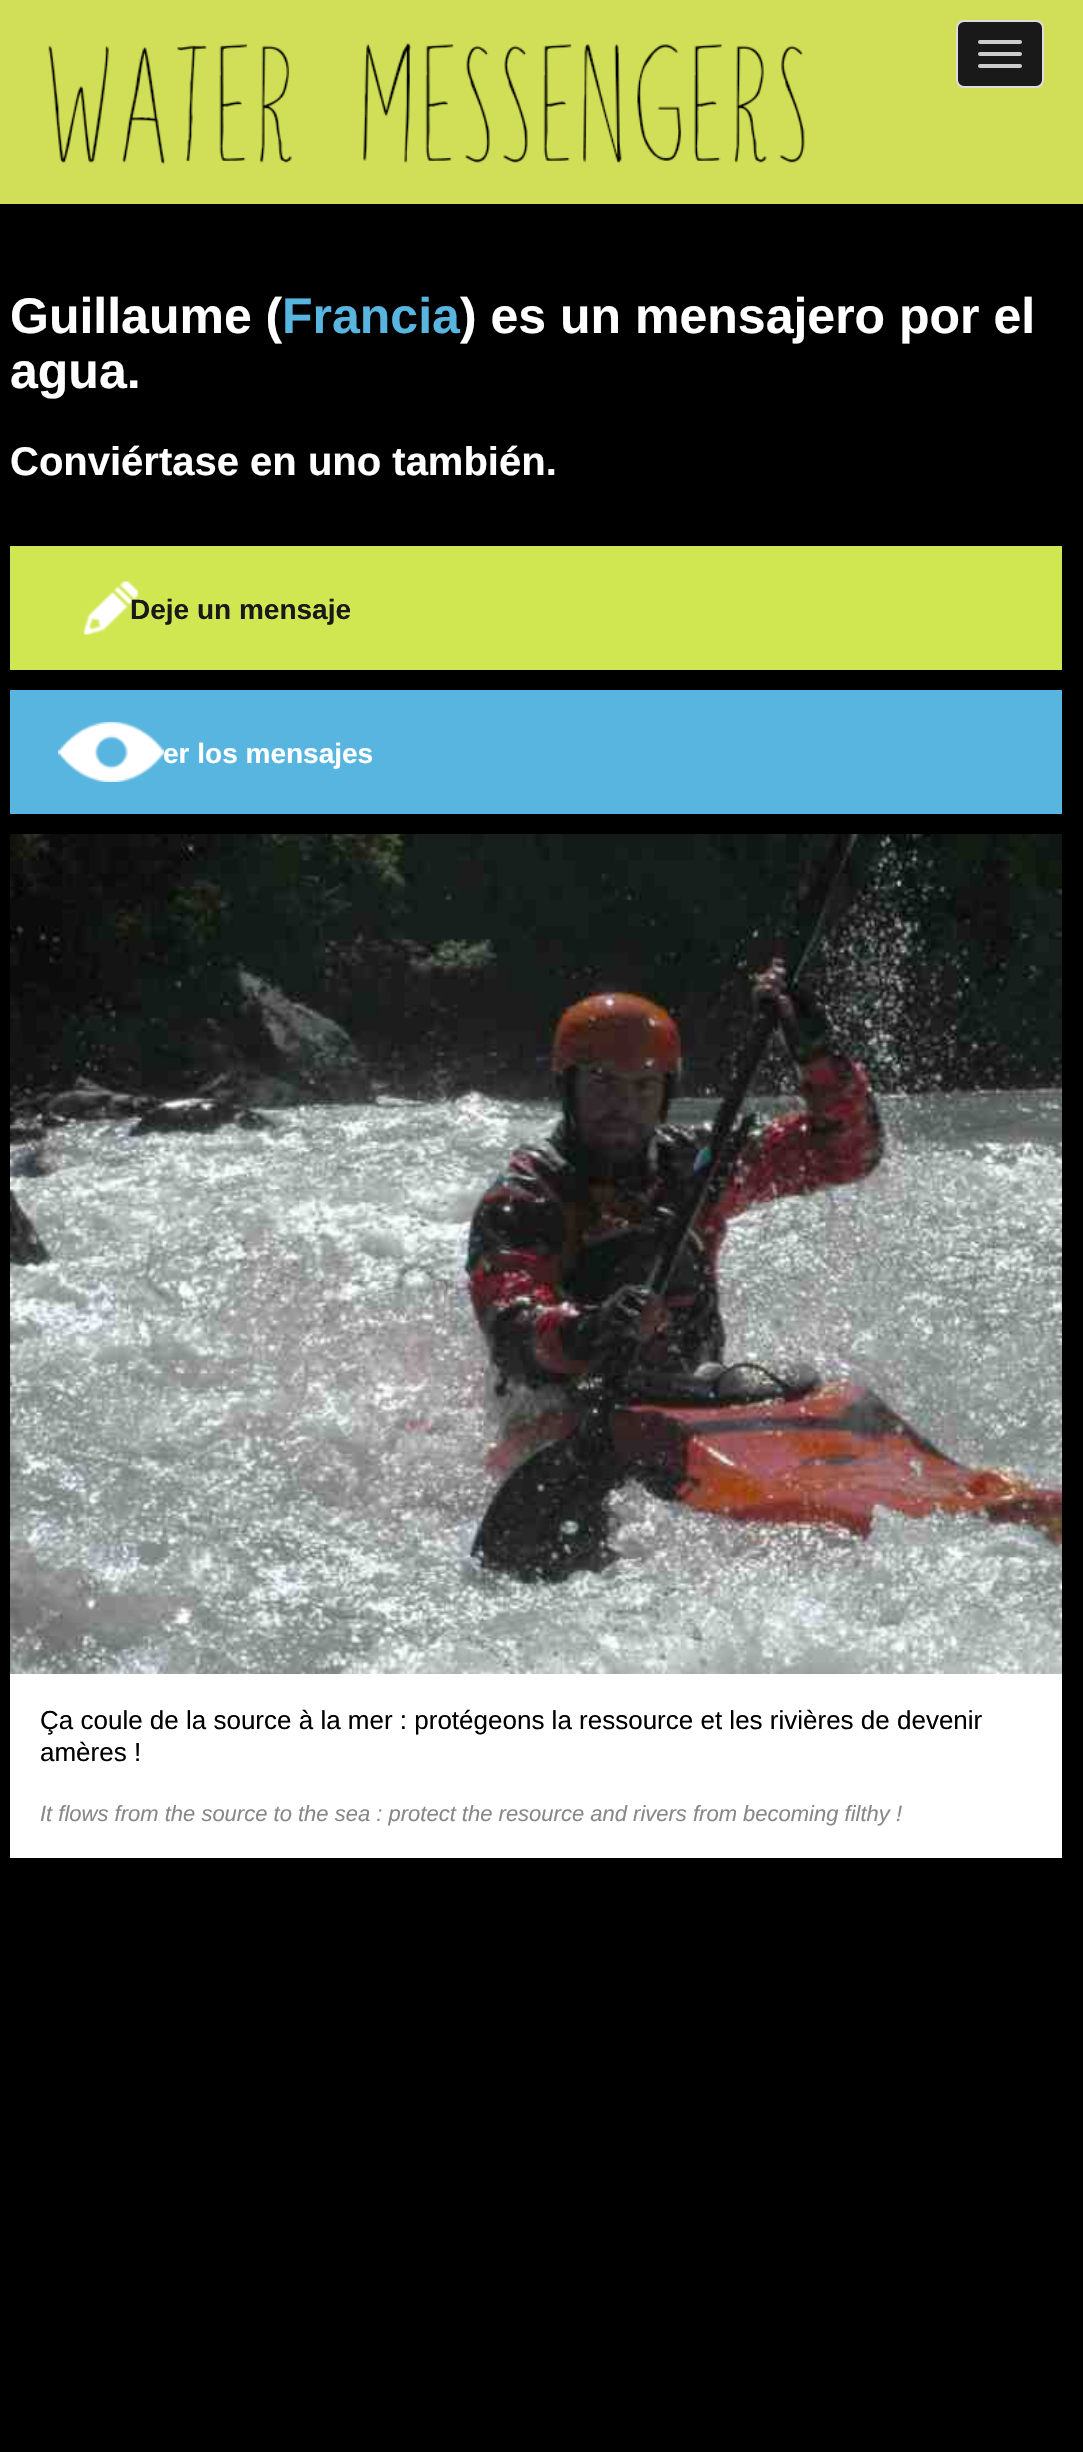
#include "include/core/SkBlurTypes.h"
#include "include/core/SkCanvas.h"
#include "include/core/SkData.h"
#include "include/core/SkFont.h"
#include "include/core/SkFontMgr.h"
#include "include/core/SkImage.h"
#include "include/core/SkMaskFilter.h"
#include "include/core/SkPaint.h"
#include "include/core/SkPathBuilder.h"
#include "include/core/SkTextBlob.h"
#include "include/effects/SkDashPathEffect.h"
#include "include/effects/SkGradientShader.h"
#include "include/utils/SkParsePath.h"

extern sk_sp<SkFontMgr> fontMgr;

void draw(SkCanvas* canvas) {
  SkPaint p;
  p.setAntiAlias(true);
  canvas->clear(SK_ColorBLACK);
  p.setColor(SkColorSetRGB(208, 223, 87));
  canvas->drawRect(SkRect::MakeLTRB(0, 0, 1083, 204), p);
  canvas->drawImageRect(SkImages::DeferredFromEncodedData(SkData::MakeFromFileName("images/1.png")), SkRect::MakeLTRB(48, 43, 805, 164), SkSamplingOptions());
  p.setColor(SkColorSetRGB(25, 25, 25));
  canvas->drawRoundRect(SkRect::MakeLTRB(957, 21, 1043, 87), 7, 7, p);
  p.setStyle(SkPaint::kStroke_Style);
  p.setStrokeWidth(2);
  p.setColor(SkColorSetRGB(221, 221, 221));
  canvas->drawRoundRect(SkRect::MakeLTRB(957, 21, 1043, 87), 7, 7, p);
  p.setStyle(SkPaint::kFill_Style);
  p.setColor(SkColorSetRGB(204, 204, 204));
  canvas->drawRoundRect(SkRect::MakeLTRB(978, 40, 1022, 44), 2, 2, p);
  canvas->drawRoundRect(SkRect::MakeLTRB(978, 52, 1022, 56), 2, 2, p);
  canvas->drawRoundRect(SkRect::MakeLTRB(978, 64, 1022, 68), 2, 2, p);
  p.setColor(SkColorSetRGB(209, 231, 81));
  canvas->drawRect(SkRect::MakeLTRB(10, 546, 1062, 670), p);
  canvas->drawImageRect(SkImages::DeferredFromEncodedData(SkData::MakeFromFileName("images/2.png")), SkRect::MakeLTRB(83, 581, 139, 635), SkSamplingOptions());
  p.setColor(SkColorSetRGB(88, 181, 223));
  canvas->drawRect(SkRect::MakeLTRB(10, 690, 1062, 814), p);
  canvas->drawImageRect(SkImages::DeferredFromEncodedData(SkData::MakeFromFileName("images/3.png")), SkRect::MakeLTRB(58, 722, 164, 782), SkSamplingOptions());
  canvas->drawImageRect(SkImages::DeferredFromEncodedData(SkData::MakeFromFileName("images/4.png")), SkRect::MakeLTRB(10, 834, 1062, 1674), SkSamplingOptions());
  p.setColor(SK_ColorWHITE);
  canvas->drawRect(SkRect::MakeLTRB(10, 1674, 1062, 1858), p);
  SkFont font1(fontMgr->matchFamilyStyle("Liberation Sans", SkFontStyle::Bold()), 50);
  font1.setSubpixel(true);
  canvas->drawString("Guillaume (", 10, 333, font1, p);
  p.setColor(SkColorSetRGB(88, 181, 223));
  canvas->drawString("Francia", 282, 333, font1, p);
  p.setColor(SK_ColorWHITE);
  canvas->drawString(") es un mensajero por el", 460, 333, font1, p);
  canvas->drawString("agua.", 10, 388, font1, p);
  SkFont font2(fontMgr->matchFamilyStyle("Liberation Sans", SkFontStyle::Bold()), 40);
  font2.setSubpixel(true);
  canvas->drawString("Conviértase en uno también.", 10, 475, font2, p);
  SkFont font3(fontMgr->matchFamilyStyle("Liberation Sans", SkFontStyle::Bold()), 28);
  font3.setSubpixel(true);
  p.setColor(SkColorSetRGB(25, 25, 25));
  canvas->drawString("Deje un mensaje", 130, 619, font3, p);
  p.setColor(SK_ColorWHITE);
  canvas->drawString("er los mensajes", 163, 763, font3, p);
  SkFont font4(fontMgr->matchFamilyStyle("Liberation Sans", SkFontStyle::Normal()), 26);
  font4.setSubpixel(true);
  p.setColor(SK_ColorBLACK);
  canvas->drawString("Ça coule de la source à la mer : protégeons la ressource et les rivières de devenir", 40, 1729, font4, p);
  canvas->drawString("amères !", 40, 1761, font4, p);
  SkFont font5(fontMgr->matchFamilyStyle("Liberation Sans", SkFontStyle::Italic()), 22);
  font5.setSubpixel(true);
  p.setColor(SkColorSetRGB(137, 136, 136));
  canvas->drawString("It flows from the source to the sea : protect the resource and rivers from becoming filthy !", 40, 1821, font5, p);
}
